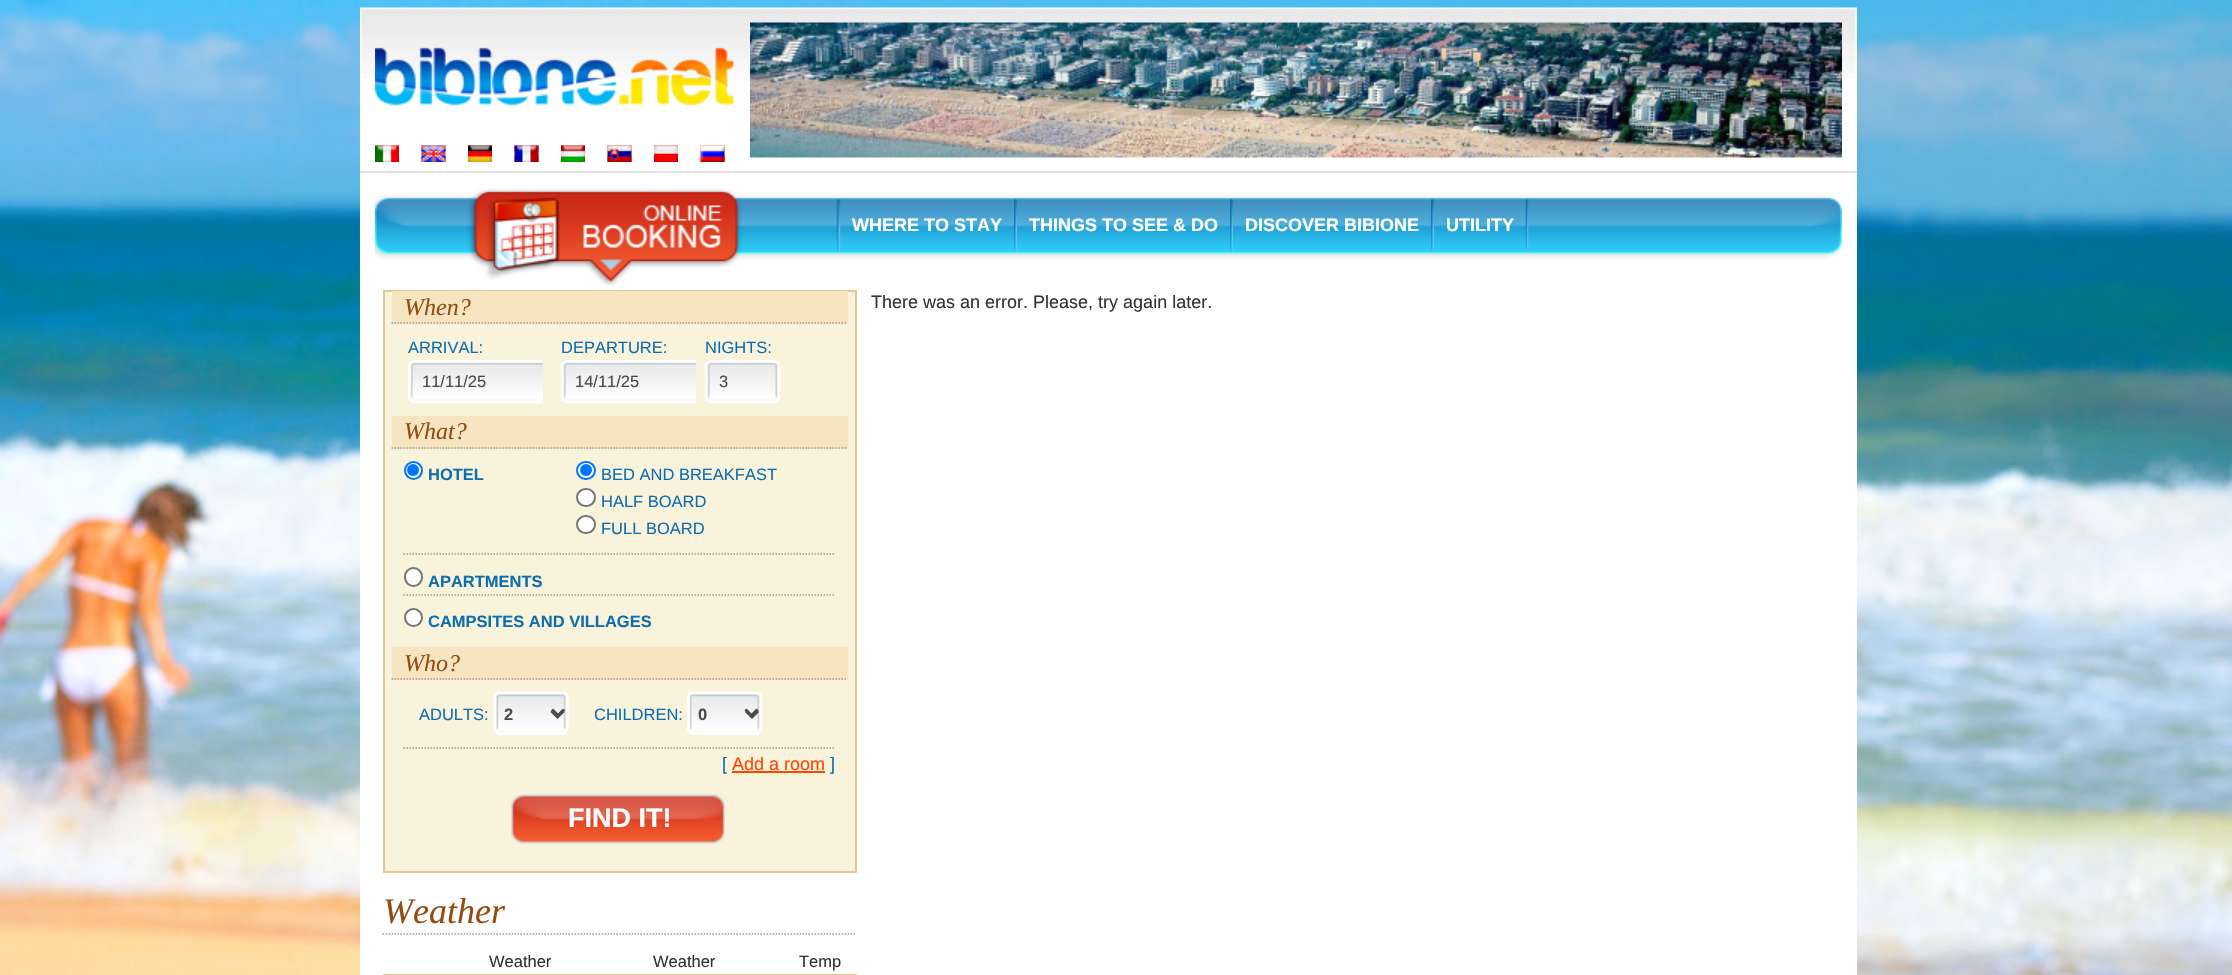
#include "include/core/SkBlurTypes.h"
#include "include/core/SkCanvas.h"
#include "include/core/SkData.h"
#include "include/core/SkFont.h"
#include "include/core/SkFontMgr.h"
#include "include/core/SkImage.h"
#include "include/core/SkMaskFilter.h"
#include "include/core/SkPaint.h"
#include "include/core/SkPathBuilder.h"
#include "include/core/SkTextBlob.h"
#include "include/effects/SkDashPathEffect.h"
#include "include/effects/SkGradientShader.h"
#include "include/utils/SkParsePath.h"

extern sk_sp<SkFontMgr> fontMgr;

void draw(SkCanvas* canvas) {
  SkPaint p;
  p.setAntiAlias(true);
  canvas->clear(SK_ColorWHITE);
  canvas->drawImageRect(SkImages::DeferredFromEncodedData(SkData::MakeFromFileName("images/1.png")), SkRect::MakeLTRB(0, 0, 2232, 975), SkSamplingOptions());
  p.setColor(SK_ColorWHITE);
  canvas->drawRect(SkRect::MakeLTRB(360, 79, 1857, 171), p);
  canvas->drawImageRect(SkImages::DeferredFromEncodedData(SkData::MakeFromFileName("images/2.png")), SkRect::MakeLTRB(360, 7, 1857, 79), SkSamplingOptions());
  p.setColor(SkColorSetRGB(226, 226, 226));
  canvas->drawRect(SkRect::MakeLTRB(360, 171, 1857, 173), p);
  canvas->drawImageRect(SkImages::DeferredFromEncodedData(SkData::MakeFromFileName("images/3.png")), SkRect::MakeLTRB(375, 47, 734, 106), SkSamplingOptions());
  canvas->drawImageRect(SkImages::DeferredFromEncodedData(SkData::MakeFromFileName("images/4.png")), SkRect::MakeLTRB(750, 22, 1842, 158), SkSamplingOptions());
  canvas->drawImageRect(SkImages::DeferredFromEncodedData(SkData::MakeFromFileName("images/5.png")), SkRect::MakeLTRB(375, 145, 399, 162), SkSamplingOptions());
  canvas->drawImageRect(SkImages::DeferredFromEncodedData(SkData::MakeFromFileName("images/6.png")), SkRect::MakeLTRB(375, 145, 399, 162), SkSamplingOptions());
  canvas->drawImageRect(SkImages::DeferredFromEncodedData(SkData::MakeFromFileName("images/7.png")), SkRect::MakeLTRB(421, 145, 446, 162), SkSamplingOptions());
  canvas->drawImageRect(SkImages::DeferredFromEncodedData(SkData::MakeFromFileName("images/8.png")), SkRect::MakeLTRB(421, 145, 446, 162), SkSamplingOptions());
  canvas->drawImageRect(SkImages::DeferredFromEncodedData(SkData::MakeFromFileName("images/5.png")), SkRect::MakeLTRB(468, 145, 492, 162), SkSamplingOptions());
  canvas->drawImageRect(SkImages::DeferredFromEncodedData(SkData::MakeFromFileName("images/9.png")), SkRect::MakeLTRB(468, 145, 492, 162), SkSamplingOptions());
  canvas->drawImageRect(SkImages::DeferredFromEncodedData(SkData::MakeFromFileName("images/10.png")), SkRect::MakeLTRB(514, 145, 539, 162), SkSamplingOptions());
  canvas->drawImageRect(SkImages::DeferredFromEncodedData(SkData::MakeFromFileName("images/11.png")), SkRect::MakeLTRB(514, 145, 539, 162), SkSamplingOptions());
  canvas->drawImageRect(SkImages::DeferredFromEncodedData(SkData::MakeFromFileName("images/5.png")), SkRect::MakeLTRB(561, 145, 585, 162), SkSamplingOptions());
  canvas->drawImageRect(SkImages::DeferredFromEncodedData(SkData::MakeFromFileName("images/12.png")), SkRect::MakeLTRB(561, 145, 585, 162), SkSamplingOptions());
  canvas->drawImageRect(SkImages::DeferredFromEncodedData(SkData::MakeFromFileName("images/7.png")), SkRect::MakeLTRB(607, 145, 632, 162), SkSamplingOptions());
  canvas->drawImageRect(SkImages::DeferredFromEncodedData(SkData::MakeFromFileName("images/13.png")), SkRect::MakeLTRB(607, 145, 632, 162), SkSamplingOptions());
  canvas->drawImageRect(SkImages::DeferredFromEncodedData(SkData::MakeFromFileName("images/14.png")), SkRect::MakeLTRB(654, 145, 678, 162), SkSamplingOptions());
  canvas->drawImageRect(SkImages::DeferredFromEncodedData(SkData::MakeFromFileName("images/15.png")), SkRect::MakeLTRB(654, 145, 678, 162), SkSamplingOptions());
  canvas->drawImageRect(SkImages::DeferredFromEncodedData(SkData::MakeFromFileName("images/7.png")), SkRect::MakeLTRB(700, 145, 725, 162), SkSamplingOptions());
  canvas->drawImageRect(SkImages::DeferredFromEncodedData(SkData::MakeFromFileName("images/16.png")), SkRect::MakeLTRB(700, 145, 725, 162), SkSamplingOptions());
  p.setColor(SK_ColorWHITE);
  canvas->drawRect(SkRect::MakeLTRB(360, 173, 1857, 975), p);
  canvas->drawImageRect(SkImages::DeferredFromEncodedData(SkData::MakeFromFileName("images/17.png")), SkRect::MakeLTRB(375, 188, 1842, 286), SkSamplingOptions());
  canvas->drawImageRect(SkImages::DeferredFromEncodedData(SkData::MakeFromFileName("images/18.png")), SkRect::MakeLTRB(1014, 199, 1017, 252), SkSamplingOptions());
  canvas->drawImageRect(SkImages::DeferredFromEncodedData(SkData::MakeFromFileName("images/19.png")), SkRect::MakeLTRB(1230, 199, 1233, 252), SkSamplingOptions());
  canvas->drawImageRect(SkImages::DeferredFromEncodedData(SkData::MakeFromFileName("images/18.png")), SkRect::MakeLTRB(1431, 199, 1434, 252), SkSamplingOptions());
  canvas->drawImageRect(SkImages::DeferredFromEncodedData(SkData::MakeFromFileName("images/20.png")), SkRect::MakeLTRB(1525, 199, 1529, 252), SkSamplingOptions());
  p.setColor(SkColorSetRGB(249, 243, 220));
  canvas->drawRect(SkRect::MakeLTRB(384, 291, 856, 872), p);
  p.setStyle(SkPaint::kStroke_Style);
  p.setStrokeWidth(2);
  p.setColor(SkColorSetRGB(227, 198, 145));
  canvas->drawRect(SkRect::MakeLTRB(384, 291, 856, 872), p);
  p.setStyle(SkPaint::kFill_Style);
  p.setColor(SkColorSetRGB(247, 229, 194));
  canvas->drawRect(SkRect::MakeLTRB(392, 291, 848, 324), p);
  p.setStyle(SkPaint::kStroke_Style);
  p.setStrokeWidth(1.5f);
  p.setColor(SkColorSetRGB(155, 155, 155));
  p.setPathEffect(SkDashPathEffect::Make({{1.5f, 1.5f}}, 0));
  canvas->drawPath(SkPathBuilder().moveTo(391.5f, 323).lineTo(847.5f, 323).detach(), p);
  p.setPathEffect(nullptr);
  canvas->drawImageRect(SkImages::DeferredFromEncodedData(SkData::MakeFromFileName("images/21.png")), SkRect::MakeLTRB(408, 360, 543, 404), SkSamplingOptions());
  canvas->drawImageRect(SkImages::DeferredFromEncodedData(SkData::MakeFromFileName("images/21.png")), SkRect::MakeLTRB(561, 360, 696, 404), SkSamplingOptions());
  canvas->drawImageRect(SkImages::DeferredFromEncodedData(SkData::MakeFromFileName("images/22.png")), SkRect::MakeLTRB(705, 360, 781, 404), SkSamplingOptions());
  p.setStyle(SkPaint::kFill_Style);
  p.setColor(SkColorSetRGB(247, 229, 194));
  canvas->drawRect(SkRect::MakeLTRB(392, 416, 848, 449), p);
  p.setStyle(SkPaint::kStroke_Style);
  p.setColor(SkColorSetRGB(155, 155, 155));
  p.setPathEffect(SkDashPathEffect::Make({{1.5f, 1.5f}}, 0));
  canvas->drawPath(SkPathBuilder().moveTo(391.5f, 448).lineTo(847.5f, 448).detach(), p);
  p.setPathEffect(nullptr);
  p.setStyle(SkPaint::kFill_Style);
  p.setColor(SK_ColorWHITE);
  canvas->drawCircle(413.5f, 470.5f, 8.5f, p);
  p.setStyle(SkPaint::kStroke_Style);
  p.setStrokeWidth(2);
  p.setColor(SkColorSetRGB(0, 117, 255));
  canvas->drawCircle(413.5f, 470.5f, 8.5f, p);
  p.setStyle(SkPaint::kFill_Style);
  canvas->drawCircle(413, 470, 6, p);
  p.setColor(SK_ColorWHITE);
  canvas->drawRoundRect(SkRect::MakeLTRB(577, 462, 595, 479), 8.5f, 8.5f, p);
  p.setStyle(SkPaint::kStroke_Style);
  p.setColor(SkColorSetRGB(0, 117, 255));
  canvas->drawRoundRect(SkRect::MakeLTRB(577, 462, 595, 479), 8.5f, 8.5f, p);
  p.setStyle(SkPaint::kFill_Style);
  canvas->drawCircle(586, 470, 6, p);
  p.setColor(SK_ColorWHITE);
  canvas->drawRoundRect(SkRect::MakeLTRB(577, 489, 595, 506), 8.5f, 8.5f, p);
  p.setStyle(SkPaint::kStroke_Style);
  p.setColor(SkColorSetRGB(118, 118, 118));
  canvas->drawRoundRect(SkRect::MakeLTRB(577, 489, 595, 506), 8.5f, 8.5f, p);
  p.setStyle(SkPaint::kFill_Style);
  p.setColor(SK_ColorWHITE);
  canvas->drawRoundRect(SkRect::MakeLTRB(577, 516, 595, 533), 8.5f, 8.5f, p);
  p.setStyle(SkPaint::kStroke_Style);
  p.setColor(SkColorSetRGB(118, 118, 118));
  canvas->drawRoundRect(SkRect::MakeLTRB(577, 516, 595, 533), 8.5f, 8.5f, p);
  p.setStrokeWidth(1.5f);
  p.setColor(SkColorSetRGB(155, 155, 155));
  p.setPathEffect(SkDashPathEffect::Make({{1.5f, 1.5f}}, 0));
  canvas->drawPath(SkPathBuilder().moveTo(403.5f, 554).lineTo(835.5f, 554).detach(), p);
  p.setPathEffect(nullptr);
  p.setStyle(SkPaint::kFill_Style);
  p.setColor(SK_ColorWHITE);
  canvas->drawRoundRect(SkRect::MakeLTRB(405, 568, 422, 586), 8.5f, 8.5f, p);
  p.setStyle(SkPaint::kStroke_Style);
  p.setStrokeWidth(2);
  p.setColor(SkColorSetRGB(118, 118, 118));
  canvas->drawRoundRect(SkRect::MakeLTRB(405, 568, 422, 586), 8.5f, 8.5f, p);
  p.setStrokeWidth(1.5f);
  p.setColor(SkColorSetRGB(155, 155, 155));
  p.setPathEffect(SkDashPathEffect::Make({{1.5f, 1.5f}}, 0));
  canvas->drawPath(SkPathBuilder().moveTo(403.5f, 595).lineTo(835.5f, 595).detach(), p);
  p.setPathEffect(nullptr);
  p.setStyle(SkPaint::kFill_Style);
  p.setColor(SK_ColorWHITE);
  canvas->drawCircle(413.5f, 617.5f, 8.5f, p);
  p.setStyle(SkPaint::kStroke_Style);
  p.setStrokeWidth(2);
  p.setColor(SkColorSetRGB(118, 118, 118));
  canvas->drawCircle(413.5f, 617.5f, 8.5f, p);
  p.setStyle(SkPaint::kFill_Style);
  p.setColor(SkColorSetRGB(247, 229, 194));
  canvas->drawRect(SkRect::MakeLTRB(392, 647, 848, 680), p);
  p.setStyle(SkPaint::kStroke_Style);
  p.setStrokeWidth(1.5f);
  p.setColor(SkColorSetRGB(155, 155, 155));
  p.setPathEffect(SkDashPathEffect::Make({{1.5f, 1.5f}}, 0));
  canvas->drawPath(SkPathBuilder().moveTo(391.5f, 679).lineTo(847.5f, 679).detach(), p);
  p.setPathEffect(nullptr);
  canvas->drawImageRect(SkImages::DeferredFromEncodedData(SkData::MakeFromFileName("images/23.png")), SkRect::MakeLTRB(493, 691, 569, 735), SkSamplingOptions());
  p.setStrokeWidth(3);
  p.setColor(SkColorSetRGB(74, 74, 74));
  canvas->drawPath(SkPathBuilder().moveTo(551.5f, 711).lineTo(557.5f, 717).lineTo(563.5f, 711).detach(), p);
  canvas->drawImageRect(SkImages::DeferredFromEncodedData(SkData::MakeFromFileName("images/24.png")), SkRect::MakeLTRB(687, 691, 763, 735), SkSamplingOptions());
  canvas->drawPath(SkPathBuilder().moveTo(746, 711).lineTo(752, 717).lineTo(758, 711).detach(), p);
  p.setStrokeWidth(1.5f);
  p.setColor(SkColorSetRGB(155, 155, 155));
  p.setPathEffect(SkDashPathEffect::Make({{1.5f, 1.5f}}, 0));
  canvas->drawPath(SkPathBuilder().moveTo(403.5f, 748).lineTo(835.5f, 748).detach(), p);
  p.setPathEffect(nullptr);
  p.setStyle(SkPaint::kFill_Style);
  p.setColor(SkColorSetRGB(255, 69, 0));
  canvas->drawRect(SkRect::MakeLTRB(732, 771, 825, 773), p);
  canvas->drawImageRect(SkImages::DeferredFromEncodedData(SkData::MakeFromFileName("images/25.png")), SkRect::MakeLTRB(511, 794, 725, 844), SkSamplingOptions());
  p.setStyle(SkPaint::kStroke_Style);
  p.setColor(SkColorSetRGB(155, 155, 155));
  p.setPathEffect(SkDashPathEffect::Make({{1.5f, 1.5f}}, 0));
  canvas->drawPath(SkPathBuilder().moveTo(382.5f, 934).lineTo(856.5f, 934).detach(), p);
  p.setPathEffect(nullptr);
  p.setStyle(SkPaint::kFill_Style);
  p.setColor(SkColorSetRGB(227, 198, 145));
  canvas->drawRect(SkRect::MakeLTRB(383, 974, 857, 975), p);
  SkFont font1(fontMgr->matchFamilyStyle("Liberation Sans", SkFontStyle::Bold()), 18);
  font1.setSubpixel(true);
  p.setColor(SK_ColorWHITE);
  canvas->drawString("WHERE TO STAY", 852, 231, font1, p);
  canvas->drawString("THINGS TO SEE & DO", 1029, 231, font1, p);
  canvas->drawString("DISCOVER BIBIONE", 1245, 231, font1, p);
  canvas->drawString("UTILITY", 1446, 231, font1, p);
  SkFont font2(fontMgr->matchFamilyStyle("Liberation Serif", SkFontStyle::Italic()), 24);
  font2.setSubpixel(true);
  p.setColor(SkColorSetRGB(148, 75, 16));
  canvas->drawString("When?", 404, 315, font2, p);
  SkFont font3(fontMgr->matchFamilyStyle("Liberation Sans", SkFontStyle::Normal()), 16.5f);
  font3.setSubpixel(true);
  p.setColor(SkColorSetRGB(15, 110, 176));
  canvas->drawString("ARRIVAL:", 408, 353, font3, p);
  p.setColor(SkColorSetRGB(74, 74, 74));
  canvas->drawString("11/11/25", 422, 387, font3, p);
  p.setColor(SkColorSetRGB(15, 110, 176));
  canvas->drawString("DEPARTURE:", 561, 353, font3, p);
  p.setColor(SkColorSetRGB(74, 74, 74));
  canvas->drawString("14/11/25", 575, 387, font3, p);
  p.setColor(SkColorSetRGB(15, 110, 176));
  canvas->drawString("NIGHTS:", 705, 353, font3, p);
  p.setColor(SkColorSetRGB(74, 74, 74));
  canvas->drawString("3", 719, 387, font3, p);
  p.setColor(SkColorSetRGB(148, 75, 16));
  canvas->drawString("What?", 404, 439, font2, p);
  SkFont font4(fontMgr->matchFamilyStyle("Liberation Sans", SkFontStyle::Bold()), 16.5f);
  font4.setSubpixel(true);
  p.setColor(SkColorSetRGB(15, 110, 176));
  canvas->drawString("HOTEL", 428, 480, font4, p);
  canvas->drawString("BED AND BREAKFAST", 601, 480, font3, p);
  canvas->drawString("HALF BOARD", 601, 507, font3, p);
  canvas->drawString("FULL BOARD", 601, 534, font3, p);
  canvas->drawString("APARTMENTS", 428, 587, font4, p);
  canvas->drawString("CAMPSITES AND VILLAGES", 428, 627, font4, p);
  p.setColor(SkColorSetRGB(148, 75, 16));
  canvas->drawString("Who?", 404, 671, font2, p);
  p.setColor(SkColorSetRGB(15, 110, 176));
  canvas->drawString("ADULTS:", 419, 720, font3, p);
  p.setColor(SkColorSetRGB(74, 74, 74));
  canvas->drawString("2", 504, 720, font4, p);
  p.setColor(SkColorSetRGB(15, 110, 176));
  canvas->drawString("CHILDREN:", 594, 720, font3, p);
  p.setColor(SkColorSetRGB(74, 74, 74));
  canvas->drawString("0", 698, 720, font4, p);
  SkFont font5(fontMgr->matchFamilyStyle("Liberation Sans", SkFontStyle::Normal()), 18);
  font5.setSubpixel(true);
  p.setColor(SkColorSetRGB(15, 110, 176));
  canvas->drawString("[", 722, 770, font5, p);
  p.setColor(SkColorSetRGB(255, 69, 0));
  canvas->drawString("Add a room", 732, 770, font5, p);
  p.setColor(SkColorSetRGB(15, 110, 176));
  canvas->drawString("]", 830, 770, font5, p);
  SkFont font6(fontMgr->matchFamilyStyle("Liberation Sans", SkFontStyle::Bold()), 27);
  font6.setSubpixel(true);
  p.setColor(SK_ColorWHITE);
  canvas->drawString("FIND IT!", 568, 827, font6, p);
  SkFont font7(fontMgr->matchFamilyStyle("Liberation Serif", SkFontStyle::Italic()), 36);
  font7.setSubpixel(true);
  p.setColor(SkColorSetRGB(148, 75, 16));
  canvas->drawString("Weather", 383, 923, font7, p);
  p.setColor(SkColorSetRGB(51, 51, 51));
  canvas->drawString("Weather", 489, 967, font3, p);
  canvas->drawString("Weather", 653, 967, font3, p);
  canvas->drawString("Temp", 799, 967, font3, p);
  canvas->drawString("There was an error. Please, try again later.", 871, 308, font5, p);
}
